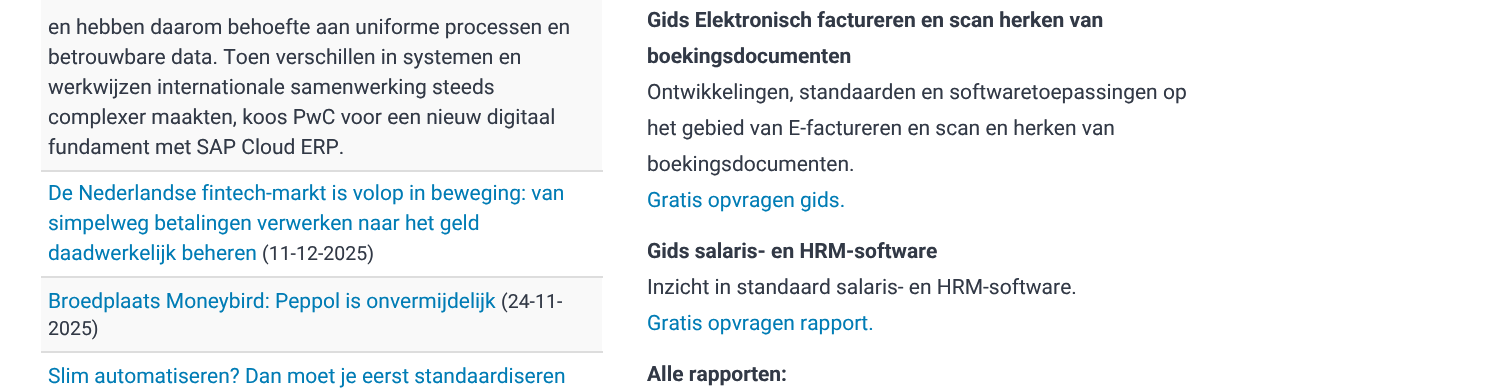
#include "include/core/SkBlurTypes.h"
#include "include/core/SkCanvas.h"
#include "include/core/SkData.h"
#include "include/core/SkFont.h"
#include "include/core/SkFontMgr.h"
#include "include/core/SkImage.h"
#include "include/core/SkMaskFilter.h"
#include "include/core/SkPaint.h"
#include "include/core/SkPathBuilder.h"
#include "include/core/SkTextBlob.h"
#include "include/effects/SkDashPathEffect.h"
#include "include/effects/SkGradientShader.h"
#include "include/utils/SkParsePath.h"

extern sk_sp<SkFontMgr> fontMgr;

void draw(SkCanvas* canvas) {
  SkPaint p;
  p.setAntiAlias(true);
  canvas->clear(SK_ColorWHITE);
  p.setColor(SkColorSetRGB(249, 249, 249));
  canvas->drawRect(SkRect::MakeLTRB(41, 0, 602, 170), p);
  p.setColor(SkColorSetRGB(221, 221, 221));
  canvas->drawRect(SkRect::MakeLTRB(41, 170, 603, 172), p);
  p.setColor(SkColorSetRGB(249, 249, 249));
  canvas->drawRect(SkRect::MakeLTRB(41, 278, 602, 351), p);
  p.setColor(SkColorSetRGB(221, 221, 221));
  canvas->drawRect(SkRect::MakeLTRB(41, 276, 603, 278), p);
  canvas->drawRect(SkRect::MakeLTRB(41, 351, 603, 353), p);
  SkFont font1(fontMgr->matchFamilyStyle("Roboto", SkFontStyle::Normal()), 21);
  font1.setSubpixel(true);
  p.setColor(SkColorSetRGB(50, 57, 70));
  canvas->drawString("en hebben daarom behoefte aan uniforme processen en", 48, 34, font1, p);
  canvas->drawString("betrouwbare data. Toen verschillen in systemen en", 48, 64, font1, p);
  canvas->drawString("werkwijzen internationale samenwerking steeds", 48, 94, font1, p);
  canvas->drawString("complexer maakten, koos PwC voor een nieuw digitaal", 48, 124, font1, p);
  canvas->drawString("fundament met SAP Cloud ERP.", 48, 154, font1, p);
  p.setColor(SkColorSetRGB(0, 124, 181));
  canvas->drawString("De Nederlandse fintech-markt is volop in beweging: van", 48, 200, font1, p);
  canvas->drawString("simpelweg betalingen verwerken naar het geld", 48, 230, font1, p);
  canvas->drawString("daadwerkelijk beheren", 48, 260, font1, p);
  SkFont font2(fontMgr->matchFamilyStyle("Roboto", SkFontStyle::Normal()), 19.5f);
  font2.setSubpixel(true);
  p.setColor(SkColorSetRGB(50, 57, 70));
  canvas->drawString("(11-12-2025)", 262, 260, font2, p);
  p.setColor(SkColorSetRGB(0, 124, 181));
  canvas->drawString("Broedplaats Moneybird: Peppol is onvermijdelijk", 48, 308, font1, p);
  p.setColor(SkColorSetRGB(50, 57, 70));
  canvas->drawString("(24-11-", 501, 308, font2, p);
  canvas->drawString("2025)", 48, 335, font2, p);
  p.setColor(SkColorSetRGB(0, 124, 181));
  canvas->drawString("Slim automatiseren? Dan moet je eerst standaardiseren", 48, 383, font1, p);
  SkFont font3(fontMgr->matchFamilyStyle("Roboto", SkFontStyle::Bold()), 21);
  font3.setSubpixel(true);
  p.setColor(SkColorSetRGB(50, 57, 70));
  canvas->drawString("Gids Elektronisch factureren en scan herken van", 647, 27, font3, p);
  canvas->drawString("boekingsdocumenten", 647, 63, font3, p);
  canvas->drawString("Ontwikkelingen, standaarden en softwaretoepassingen op", 647, 99, font1, p);
  canvas->drawString("het gebied van E-factureren en scan en herken van", 647, 135, font1, p);
  canvas->drawString("boekingsdocumenten.", 647, 171, font1, p);
  p.setColor(SkColorSetRGB(0, 124, 181));
  canvas->drawString("Gratis opvragen gids.", 647, 207, font1, p);
  p.setColor(SkColorSetRGB(50, 57, 70));
  canvas->drawString("Gids salaris- en HRM-software", 647, 258, font3, p);
  canvas->drawString("Inzicht in standaard salaris- en HRM-software.", 647, 294, font1, p);
  p.setColor(SkColorSetRGB(0, 124, 181));
  canvas->drawString("Gratis opvragen rapport.", 647, 330, font1, p);
  p.setColor(SkColorSetRGB(50, 57, 70));
  canvas->drawString("Alle rapporten:", 647, 381, font3, p);
}
